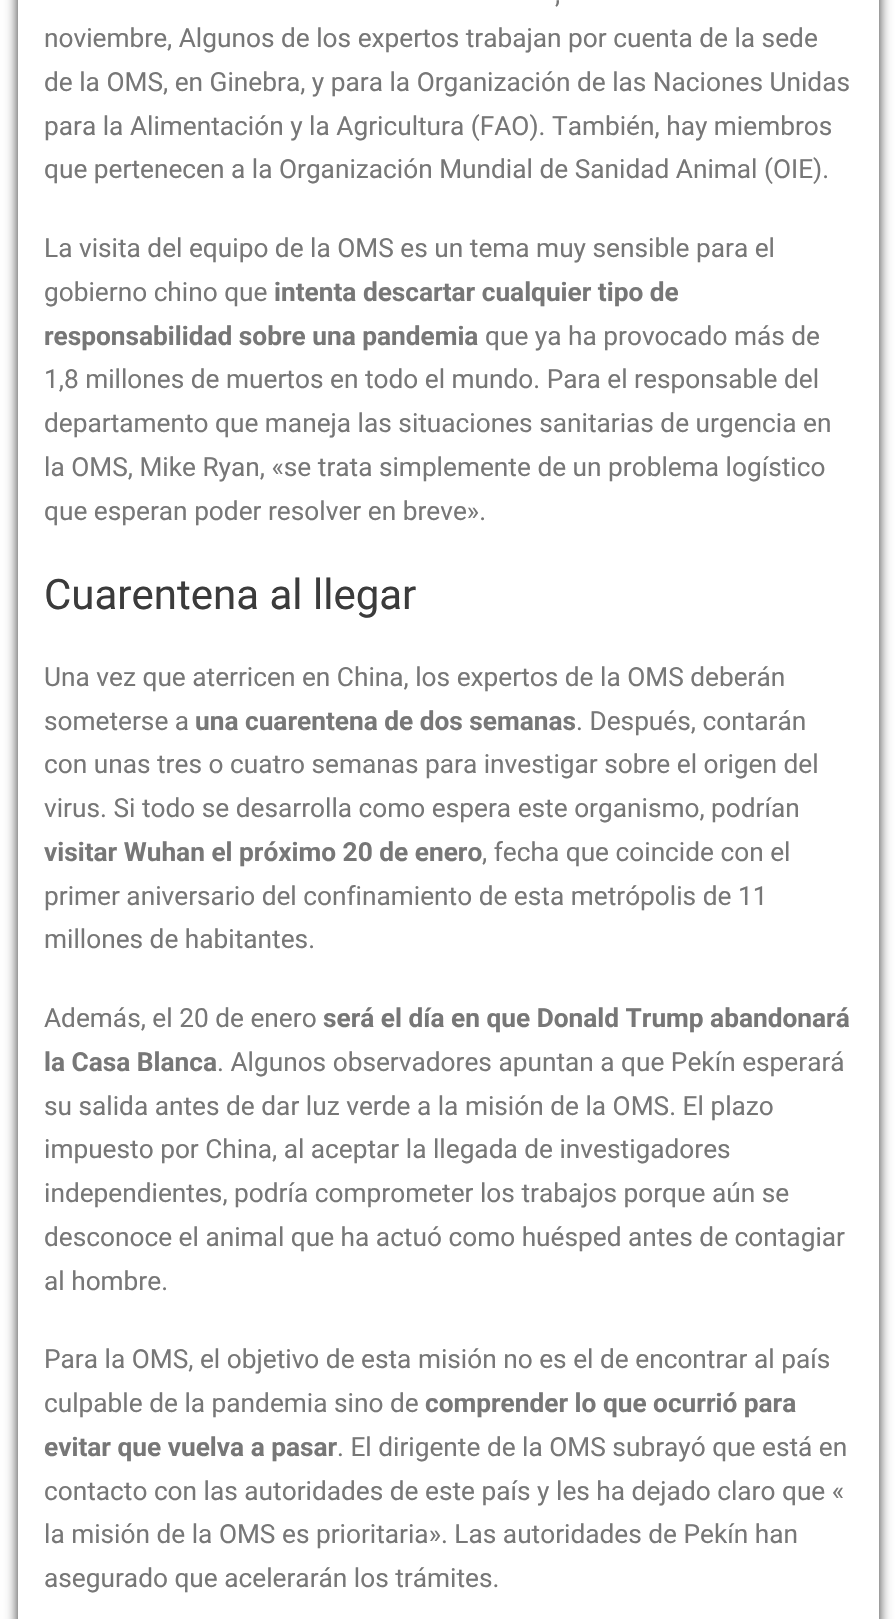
#include "include/core/SkBlurTypes.h"
#include "include/core/SkCanvas.h"
#include "include/core/SkData.h"
#include "include/core/SkFont.h"
#include "include/core/SkFontMgr.h"
#include "include/core/SkImage.h"
#include "include/core/SkMaskFilter.h"
#include "include/core/SkPaint.h"
#include "include/core/SkPathBuilder.h"
#include "include/core/SkTextBlob.h"
#include "include/effects/SkDashPathEffect.h"
#include "include/effects/SkGradientShader.h"
#include "include/utils/SkParsePath.h"

extern sk_sp<SkFontMgr> fontMgr;

void draw(SkCanvas* canvas) {
  SkPaint p;
  p.setAntiAlias(true);
  canvas->clear(SK_ColorWHITE);
  p.setColor(SkColorSetRGB(48, 48, 48));
  p.setMaskFilter(SkMaskFilter::MakeBlur(kNormal_SkBlurStyle, 6));
  canvas->drawRect(SkRect::MakeLTRB(18, -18, 879, 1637), p);
  p.setMaskFilter(nullptr);
  p.setColor(SK_ColorWHITE);
  canvas->drawRect(SkRect::MakeLTRB(18, 0, 879, 1619), p);
  SkFont font1(fontMgr->matchFamilyStyle("Roboto", SkFontStyle::Normal()), 26.25f);
  font1.setSubpixel(true);
  p.setColor(SkColorSetRGB(119, 119, 119));
  canvas->drawString(",", 555, 3, font1, p);
  canvas->drawString("noviembre, Algunos de los expertos trabajan por cuenta de la sede", 44, 47, font1, p);
  canvas->drawString("de la OMS, en Ginebra, y para la Organización de las Naciones Unidas", 44, 91, font1, p);
  canvas->drawString("para la Alimentación y la Agricultura (FAO). También, hay miembros", 44, 135, font1, p);
  canvas->drawString("que pertenecen a la Organización Mundial de Sanidad Animal (OIE).", 44, 178, font1, p);
  canvas->drawString("La visita del equipo de la OMS es un tema muy sensible para el", 44, 257, font1, p);
  canvas->drawString("gobierno chino que", 44, 301, font1, p);
  SkFont font2(fontMgr->matchFamilyStyle("Roboto", SkFontStyle::Bold()), 26.25f);
  font2.setSubpixel(true);
  canvas->drawString("intenta descartar cualquier tipo de", 274, 301, font2, p);
  canvas->drawString("responsabilidad sobre una pandemia", 44, 345, font2, p);
  canvas->drawString("que ya ha provocado más de", 485, 345, font1, p);
  canvas->drawString("1,8 millones de muertos en todo el mundo. Para el responsable del", 44, 388, font1, p);
  canvas->drawString("departamento que maneja las situaciones sanitarias de urgencia en", 44, 432, font1, p);
  canvas->drawString("la OMS, Mike Ryan, «se trata simplemente de un problema logístico", 44, 476, font1, p);
  canvas->drawString("que esperan poder resolver en breve».", 44, 520, font1, p);
  SkFont font3(fontMgr->matchFamilyStyle("Roboto", SkFontStyle::Normal()), 42);
  font3.setSubpixel(true);
  p.setColor(SkColorSetRGB(59, 59, 59));
  canvas->drawString("Cuarentena al llegar", 44, 609, font3, p);
  p.setColor(SkColorSetRGB(119, 119, 119));
  canvas->drawString("Una vez que aterricen en China, los expertos de la OMS deberán", 44, 686, font1, p);
  canvas->drawString("someterse a", 44, 730, font1, p);
  canvas->drawString("una cuarentena de dos semanas", 195, 730, font2, p);
  canvas->drawString(". Después, contarán", 576, 730, font1, p);
  canvas->drawString("con unas tres o cuatro semanas para investigar sobre el origen del", 44, 773, font1, p);
  canvas->drawString("virus. Si todo se desarrolla como espera este organismo, podrían", 44, 817, font1, p);
  canvas->drawString("visitar Wuhan el próximo 20 de enero", 44, 861, font2, p);
  canvas->drawString(", fecha que coincide con el", 482, 861, font1, p);
  canvas->drawString("primer aniversario del confinamiento de esta metrópolis de 11", 44, 905, font1, p);
  canvas->drawString("millones de habitantes.", 44, 948, font1, p);
  canvas->drawString("Además, el 20 de enero", 44, 1027, font1, p);
  canvas->drawString("será el día en que Donald Trump abandonará", 323, 1027, font2, p);
  canvas->drawString("la Casa Blanca", 44, 1071, font2, p);
  canvas->drawString(". Algunos observadores apuntan a que Pekín esperará", 217, 1071, font1, p);
  canvas->drawString("su salida antes de dar luz verde a la misión de la OMS. El plazo", 44, 1115, font1, p);
  canvas->drawString("impuesto por China, al aceptar la llegada de investigadores", 44, 1158, font1, p);
  canvas->drawString("independientes, podría comprometer los trabajos porque aún se", 44, 1202, font1, p);
  canvas->drawString("desconoce el animal que ha actuó como huésped antes de contagiar", 44, 1246, font1, p);
  canvas->drawString("al hombre.", 44, 1290, font1, p);
  canvas->drawString("Para la OMS, el objetivo de esta misión no es el de encontrar al país", 44, 1368, font1, p);
  canvas->drawString("culpable de la pandemia sino de", 44, 1412, font1, p);
  canvas->drawString("comprender lo que ocurrió para", 425, 1412, font2, p);
  canvas->drawString("evitar que vuelva a pasar", 44, 1456, font2, p);
  canvas->drawString(". El dirigente de la OMS subrayó que está en", 337, 1456, font1, p);
  canvas->drawString("contacto con las autoridades de este país y les ha dejado claro que «", 44, 1500, font1, p);
  canvas->drawString("la misión de la OMS es prioritaria». Las autoridades de Pekín han", 44, 1543, font1, p);
  canvas->drawString("asegurado que acelerarán los trámites.", 44, 1587, font1, p);
}
